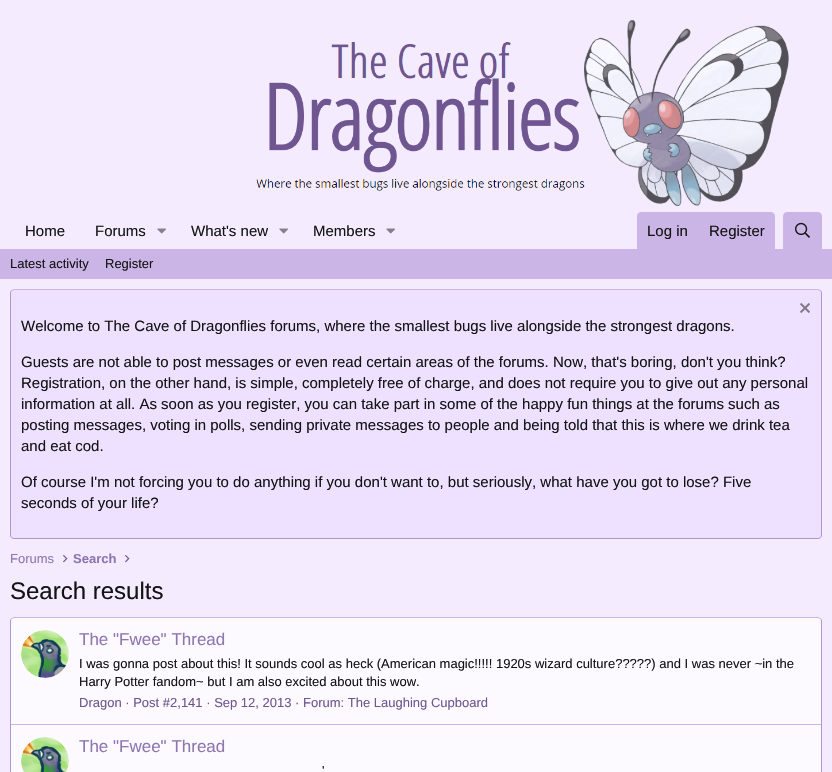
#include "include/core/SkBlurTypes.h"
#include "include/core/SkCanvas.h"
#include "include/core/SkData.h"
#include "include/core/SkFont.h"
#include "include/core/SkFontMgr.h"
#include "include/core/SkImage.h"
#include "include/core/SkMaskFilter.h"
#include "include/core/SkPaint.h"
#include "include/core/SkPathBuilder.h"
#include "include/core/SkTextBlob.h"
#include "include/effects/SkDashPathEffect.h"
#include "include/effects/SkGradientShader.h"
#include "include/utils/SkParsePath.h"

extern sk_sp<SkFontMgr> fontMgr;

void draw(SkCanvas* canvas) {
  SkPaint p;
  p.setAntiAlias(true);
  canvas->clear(SkColorSetRGB(244, 235, 255));
  canvas->drawImageRect(SkImages::DeferredFromEncodedData(SkData::MakeFromFileName("images/1.png")), SkRect::MakeLTRB(256, 20, 789, 206), SkSamplingOptions());
  canvas->drawImageRect(SkImages::DeferredFromEncodedData(SkData::MakeFromFileName("images/2.png")), SkRect::MakeLTRB(157, 228, 166, 234), SkSamplingOptions());
  canvas->drawImageRect(SkImages::DeferredFromEncodedData(SkData::MakeFromFileName("images/2.png")), SkRect::MakeLTRB(279, 228, 288, 234), SkSamplingOptions());
  canvas->drawImageRect(SkImages::DeferredFromEncodedData(SkData::MakeFromFileName("images/2.png")), SkRect::MakeLTRB(386, 228, 395, 234), SkSamplingOptions());
  p.setColor(SkColorSetRGB(203, 180, 230));
  canvas->drawPath(SkPathBuilder().moveTo(641, 212).lineTo(771, 212).cubicTo(773, 212, 775, 214, 775, 216).lineTo(775, 249).lineTo(637, 249).lineTo(637, 216).cubicTo(637, 214, 639, 212, 641, 212).close().detach(), p);
  canvas->drawPath(SkPathBuilder().moveTo(787, 212).lineTo(818, 212).cubicTo(820, 212, 822, 214, 822, 216).lineTo(822, 249).lineTo(783, 249).lineTo(783, 216).cubicTo(783, 214, 785, 212, 787, 212).close().detach(), p);
  canvas->drawImageRect(SkImages::DeferredFromEncodedData(SkData::MakeFromFileName("images/3.png")), SkRect::MakeLTRB(795, 222, 810, 238), SkSamplingOptions());
  canvas->drawRect(SkRect::MakeLTRB(0, 249, 832, 279), p);
  p.setColor(SkColorSetRGB(237, 225, 255));
  canvas->drawRoundRect(SkRect::MakeLTRB(10, 289, 822, 539), 4, 4, p);
  p.setStyle(SkPaint::kStroke_Style);
  p.setStrokeWidth(1);
  p.setColor(SkColorSetRGB(203, 180, 230));
  canvas->drawPath(SkPathBuilder().moveTo(11.5f, 290.5f).lineTo(14, 289.5f).lineTo(818, 289.5f).lineTo(820.5f, 290.5f).detach(), p);
  p.setColor(SkColorSetRGB(175, 150, 208));
  canvas->drawPath(SkPathBuilder().moveTo(820.5f, 290.5f).cubicTo(821, 291, 821.5f, 292, 821.5f, 293).lineTo(821.5f, 535).cubicTo(821.5f, 536, 821, 537, 820.5f, 537.5f).cubicTo(820, 538, 819, 538.5f, 818, 538.5f).lineTo(14, 538.5f).cubicTo(13, 538.5f, 12, 538, 11.5f, 537.5f).cubicTo(11, 537, 10.5f, 536, 10.5f, 535).lineTo(10.5f, 293).cubicTo(10.5f, 292, 11, 291, 11.5f, 290.5f).detach(), p);
  canvas->drawImageRect(SkImages::DeferredFromEncodedData(SkData::MakeFromFileName("images/4.png")), SkRect::MakeLTRB(800, 303, 810, 313), SkSamplingOptions());
  canvas->drawImageRect(SkImages::DeferredFromEncodedData(SkData::MakeFromFileName("images/5.png")), SkRect::MakeLTRB(63, 555, 68, 563), SkSamplingOptions());
  canvas->drawImageRect(SkImages::DeferredFromEncodedData(SkData::MakeFromFileName("images/5.png")), SkRect::MakeLTRB(125, 555, 130, 563), SkSamplingOptions());
  p.setStyle(SkPaint::kFill_Style);
  p.setColor(SkColorSetRGB(252, 250, 255));
  canvas->drawRoundRect(SkRect::MakeLTRB(10, 617, 822, 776), 4, 4, p);
  p.setStyle(SkPaint::kStroke_Style);
  p.setColor(SkColorSetRGB(203, 180, 230));
  canvas->drawPath(SkPathBuilder().moveTo(11.5f, 618.5f).lineTo(14, 617.5f).lineTo(818, 617.5f).lineTo(820.5f, 618.5f).detach(), p);
  p.setColor(SkColorSetRGB(175, 150, 208));
  canvas->drawPath(SkPathBuilder().moveTo(820.5f, 618.5f).cubicTo(821, 619, 821.5f, 620, 821.5f, 621).lineTo(821.5f, 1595).cubicTo(821.5f, 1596, 821, 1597, 820.5f, 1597.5f).cubicTo(820, 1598, 819, 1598.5f, 818, 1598.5f).lineTo(14, 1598.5f).cubicTo(13, 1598.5f, 12, 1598, 11.5f, 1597.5f).cubicTo(11, 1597, 10.5f, 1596, 10.5f, 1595).lineTo(10.5f, 621).cubicTo(10.5f, 620, 11, 619, 11.5f, 618.5f).detach(), p);
  canvas->drawImageRect(SkImages::DeferredFromEncodedData(SkData::MakeFromFileName("images/6.png")), SkRect::MakeLTRB(21, 630, 69, 678), SkSamplingOptions());
  p.setStyle(SkPaint::kFill_Style);
  p.setColor(SkColorSetRGB(203, 180, 230));
  canvas->drawRect(SkRect::MakeLTRB(11, 724, 821, 725), p);
  canvas->drawImageRect(SkImages::DeferredFromEncodedData(SkData::MakeFromFileName("images/7.png")), SkRect::MakeLTRB(21, 737, 69, 772), SkSamplingOptions());
  SkFont font1(fontMgr->matchFamilyStyle("Liberation Sans", SkFontStyle::Normal()), 15);
  font1.setSubpixel(true);
  p.setColor(SkColorSetRGB(20, 20, 20));
  canvas->drawString("Home", 25, 236, font1, p);
  canvas->drawString("Forums", 95, 236, font1, p);
  canvas->drawString("What's new", 191, 236, font1, p);
  canvas->drawString("Members", 313, 236, font1, p);
  canvas->drawString("Log in", 647, 236, font1, p);
  canvas->drawString("Register", 709, 236, font1, p);
  SkFont font2(fontMgr->matchFamilyStyle("Liberation Sans", SkFontStyle::Normal()), 13);
  font2.setSubpixel(true);
  canvas->drawString("Latest activity", 10, 268, font2, p);
  canvas->drawString("Register", 105, 268, font2, p);
  canvas->drawString("Welcome to The Cave of Dragonflies forums, where the smallest bugs live alongside the strongest dragons.", 21, 331, font1, p);
  canvas->drawString("Guests are not able to post messages or even read certain areas of the forums. Now, that's boring, don't you think?", 21, 367, font1, p);
  canvas->drawString("Registration, on the other hand, is simple, completely free of charge, and does not require you to give out any personal", 21, 388, font1, p);
  canvas->drawString("information at all. As soon as you register, you can take part in some of the happy fun things at the forums such as", 21, 409, font1, p);
  canvas->drawString("posting messages, voting in polls, sending private messages to people and being told that this is where we drink tea", 21, 430, font1, p);
  canvas->drawString("and eat cod.", 21, 451, font1, p);
  canvas->drawString("Of course I'm not forcing you to do anything if you don't want to, but seriously, what have you got to lose? Five", 21, 487, font1, p);
  canvas->drawString("seconds of your life?", 21, 508, font1, p);
  p.setColor(SkColorSetRGB(143, 118, 176));
  canvas->drawString("Forums", 10, 563, font2, p);
  SkFont font3(fontMgr->matchFamilyStyle("Liberation Sans", SkFontStyle::Bold()), 13);
  font3.setSubpixel(true);
  canvas->drawString("Search", 73, 563, font3, p);
  SkFont font4(fontMgr->matchFamilyStyle("Liberation Sans", SkFontStyle::Normal()), 24);
  font4.setSubpixel(true);
  p.setColor(SkColorSetRGB(20, 20, 20));
  canvas->drawString("Search results", 10, 599, font4, p);
  SkFont font5(fontMgr->matchFamilyStyle("Liberation Sans", SkFontStyle::Normal()), 17);
  font5.setSubpixel(true);
  p.setColor(SkColorSetRGB(143, 118, 176));
  canvas->drawString("The \"Fwee\" Thread", 79, 645, font5, p);
  p.setColor(SkColorSetRGB(20, 20, 20));
  canvas->drawString("I was gonna post about this! It sounds cool as heck (American magic!!!!! 1920s wizard culture?\077?\077?) and I was never ~in the", 79, 668, font2, p);
  canvas->drawString("Harry Potter fandom~ but I am also excited about this wow.", 79, 686, font2, p);
  p.setColor(SkColorSetRGB(111, 86, 144));
  canvas->drawString("Dragon · Post #2,141 · Sep 12, 2013 · Forum: The Laughing Cupboard", 79, 707, font2, p);
  p.setColor(SkColorSetRGB(143, 118, 176));
  canvas->drawString("The \"Fwee\" Thread", 79, 752, font5, p);
  p.setColor(SkColorSetRGB(20, 20, 20));
  canvas->drawString("'", 322, 775, font2, p);
}
